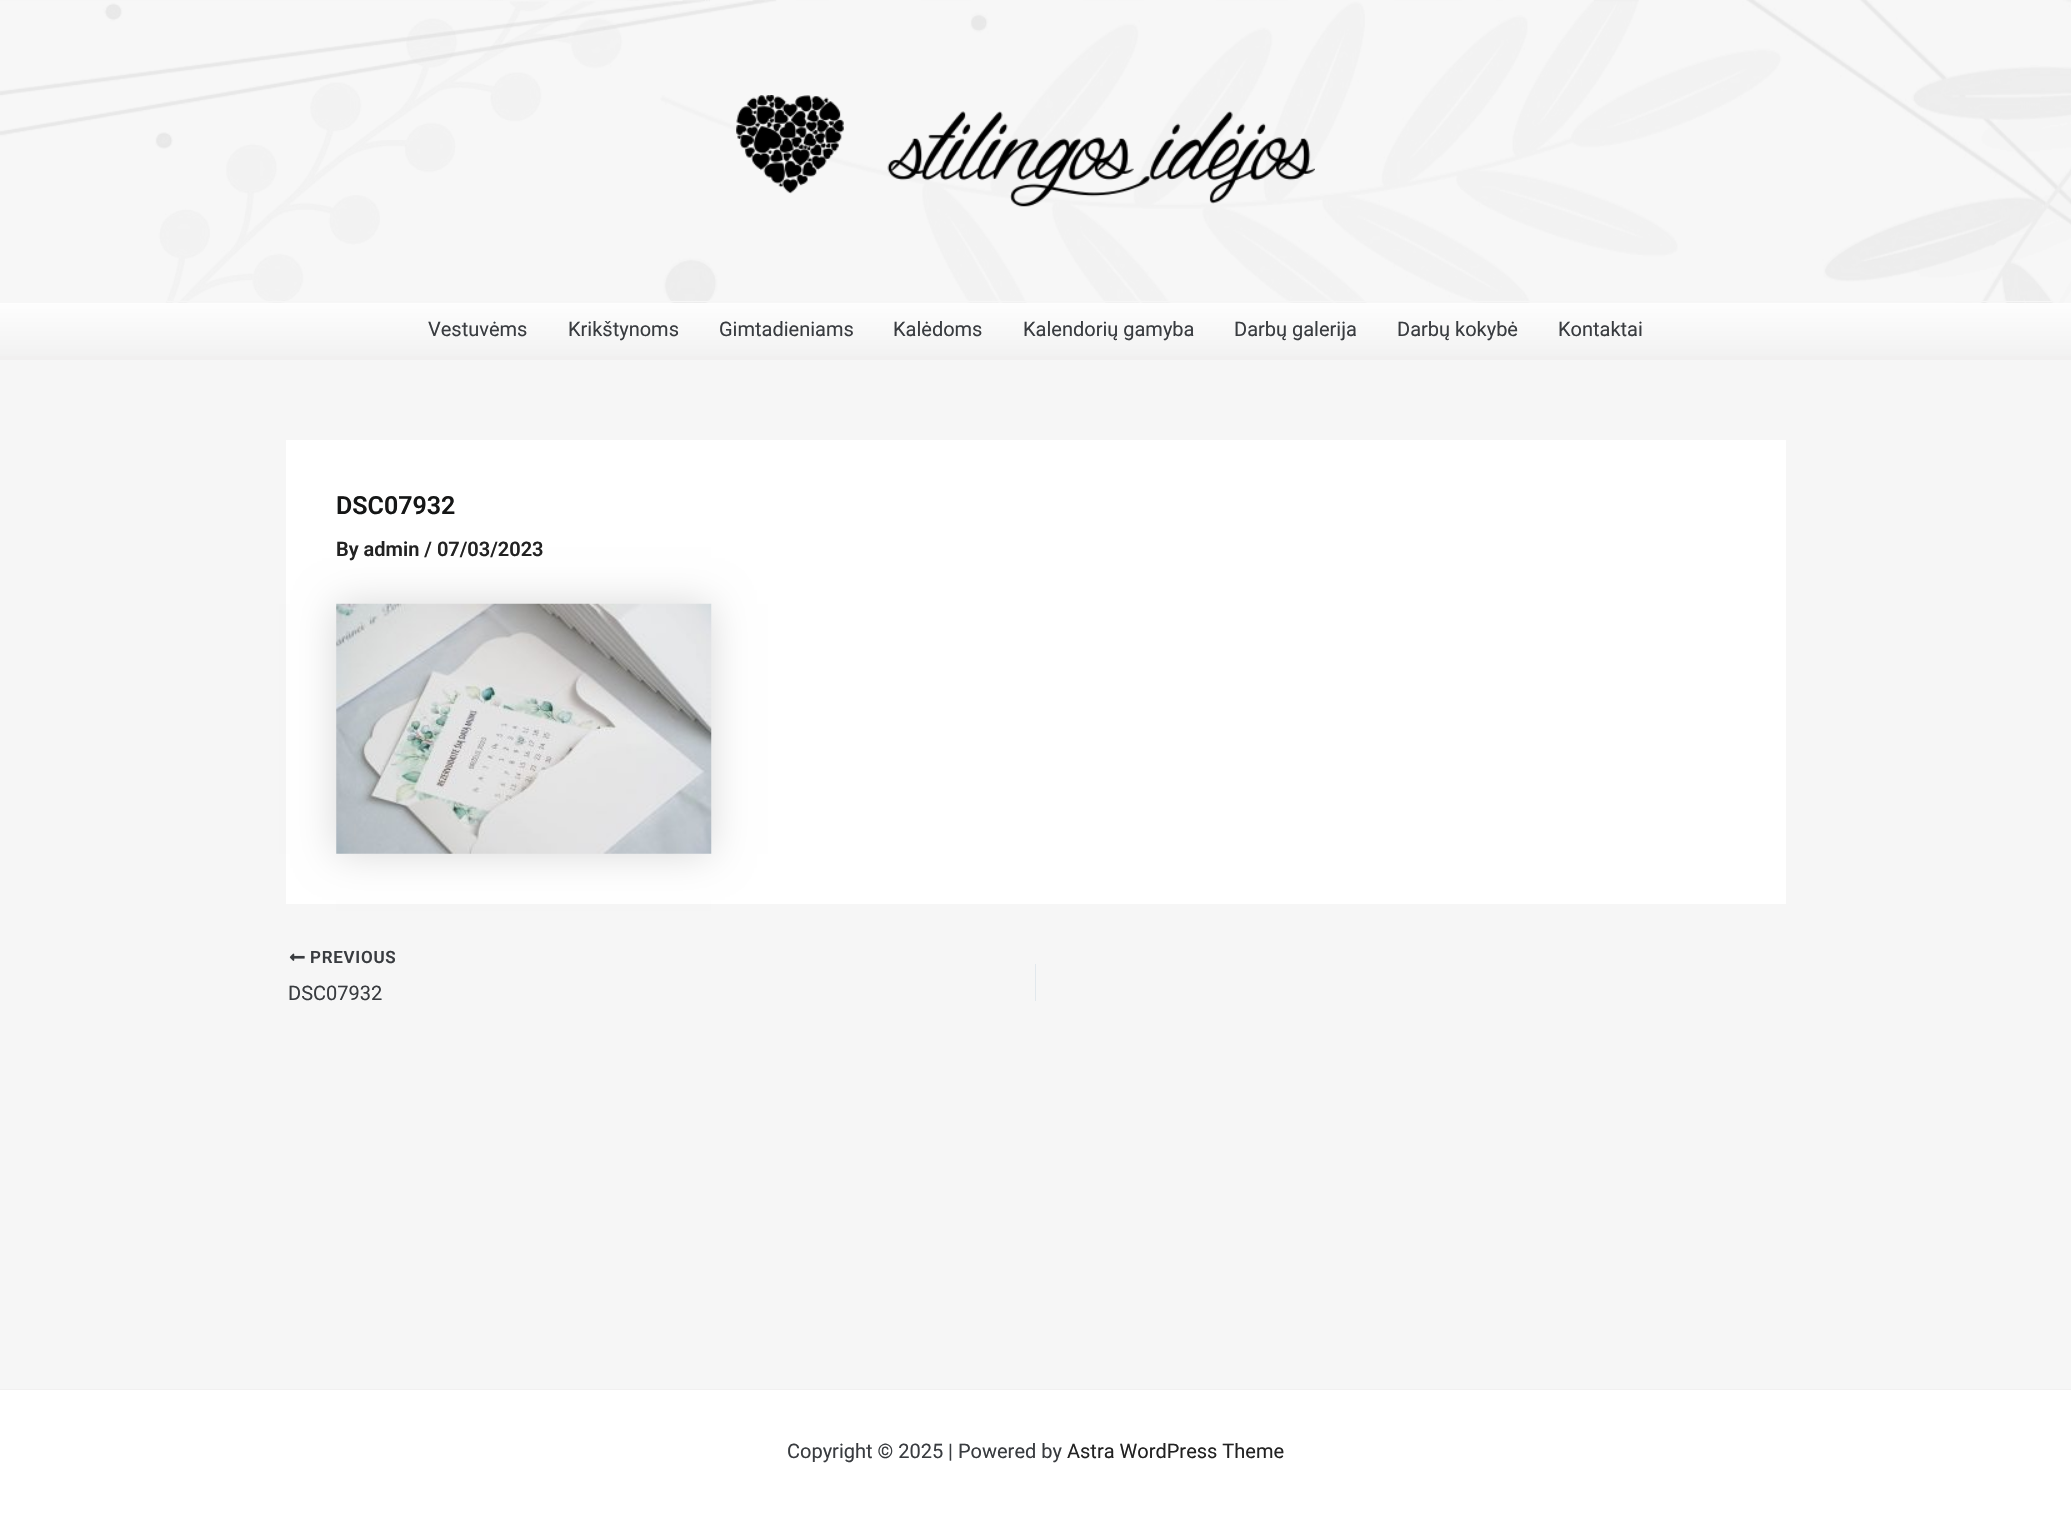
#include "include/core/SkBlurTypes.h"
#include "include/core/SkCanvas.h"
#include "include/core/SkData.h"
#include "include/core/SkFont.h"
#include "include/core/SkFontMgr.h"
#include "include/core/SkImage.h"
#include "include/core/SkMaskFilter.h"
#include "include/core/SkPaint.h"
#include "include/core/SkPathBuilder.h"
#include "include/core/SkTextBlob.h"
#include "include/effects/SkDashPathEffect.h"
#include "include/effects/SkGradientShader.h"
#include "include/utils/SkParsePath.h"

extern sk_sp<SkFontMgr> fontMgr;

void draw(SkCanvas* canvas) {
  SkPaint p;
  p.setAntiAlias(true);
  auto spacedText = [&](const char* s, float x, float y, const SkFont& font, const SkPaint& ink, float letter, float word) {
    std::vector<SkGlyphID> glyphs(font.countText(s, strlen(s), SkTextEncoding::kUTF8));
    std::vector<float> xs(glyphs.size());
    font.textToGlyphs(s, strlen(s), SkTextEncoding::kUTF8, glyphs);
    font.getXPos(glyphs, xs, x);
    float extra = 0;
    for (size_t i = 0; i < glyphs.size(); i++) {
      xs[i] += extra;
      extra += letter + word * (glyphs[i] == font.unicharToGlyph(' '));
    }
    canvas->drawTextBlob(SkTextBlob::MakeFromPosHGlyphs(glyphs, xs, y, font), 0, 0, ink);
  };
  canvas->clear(SkColorSetRGB(246, 246, 246));
  canvas->drawImageRect(SkImages::DeferredFromEncodedData(SkData::MakeFromFileName("images/1.png")), SkRect::MakeLTRB(0, 0, 2071, 303), SkSamplingOptions());
  p.setColor(SkColorSetRGB(246, 246, 246));
  canvas->drawRect(SkRect::MakeLTRB(167, 301, 2052, 302), p);
  canvas->drawImageRect(SkImages::DeferredFromEncodedData(SkData::MakeFromFileName("images/2.png")), SkRect::MakeLTRB(736, 95, 1315, 207), SkSamplingOptions());
  {
    const SkColor colors[] = {SkColorSetRGB(254, 254, 254), SkColorSetRGB(242, 242, 242)};
    const float stops[] = {0, 1};
    const SkPoint ends[] = {{1036, 302}, {1036, 356}};
    p.setShader(SkGradientShader::MakeLinear(ends, colors, stops, 2, SkTileMode::kClamp));
    p.setAlpha(255);
  }
  canvas->drawRect(SkRect::MakeLTRB(0, 303, 2071, 356), p);
  p.setShader(nullptr);
  p.setColor(SkColorSetRGB(241, 240, 240));
  canvas->drawRect(SkRect::MakeLTRB(0, 356, 2071, 360), p);
  p.setColor(SK_ColorWHITE);
  canvas->drawRect(SkRect::MakeLTRB(286, 440, 1786, 904), p);
  p.setColor(SkColorSetARGB(38, 0, 0, 0));
  p.setMaskFilter(SkMaskFilter::MakeBlur(kNormal_SkBlurStyle, 19));
  canvas->drawRect(SkRect::MakeLTRB(336, 604, 711, 854), p);
  p.setMaskFilter(nullptr);
  canvas->drawImageRect(SkImages::DeferredFromEncodedData(SkData::MakeFromFileName("images/3.png")), SkRect::MakeLTRB(336, 603, 712, 854), SkSamplingOptions());
  canvas->drawImageRect(SkImages::DeferredFromEncodedData(SkData::MakeFromFileName("images/4.png")), SkRect::MakeLTRB(289, 953, 305, 961), SkSamplingOptions());
  p.setColor(SkColorSetRGB(225, 232, 237));
  canvas->drawRect(SkRect::MakeLTRB(1035, 964, 1036, 1001), p);
  p.setColor(SK_ColorWHITE);
  canvas->drawRect(SkRect::MakeLTRB(0, 1390, 2071, 1515), p);
  p.setColor(SkColorSetRGB(241, 240, 240));
  canvas->drawRect(SkRect::MakeLTRB(0, 1389, 2071, 1390), p);
  SkFont font1(fontMgr->matchFamilyStyle("Roboto", SkFontStyle::Normal()), 20);
  font1.setSubpixel(true);
  p.setColor(SkColorSetRGB(57, 60, 64));
  canvas->drawString("Vestuvėms", 428, 336, font1, p);
  canvas->drawString("Krikštynoms", 568, 336, font1, p);
  canvas->drawString("Gimtadieniams", 719, 336, font1, p);
  canvas->drawString("Kalėdoms", 893, 336, font1, p);
  canvas->drawString("Kalendorių gamyba", 1023, 336, font1, p);
  canvas->drawString("Darbų galerija", 1234, 336, font1, p);
  canvas->drawString("Darbų kokybė", 1397, 336, font1, p);
  canvas->drawString("Kontaktai", 1558, 336, font1, p);
  SkFont font2(fontMgr->matchFamilyStyle("Roboto", SkFontStyle(600, SkFontStyle::kNormal_Width, SkFontStyle::kUpright_Slant)), 25);
  font2.setSubpixel(true);
  p.setColor(SkColorSetRGB(21, 22, 22));
  canvas->drawString("DSC07932", 336, 514, font2, p);
  SkFont font3(fontMgr->matchFamilyStyle("Roboto", SkFontStyle(600, SkFontStyle::kNormal_Width, SkFontStyle::kUpright_Slant)), 20);
  font3.setSubpixel(true);
  p.setColor(SkColorSetRGB(34, 34, 34));
  canvas->drawString("By admin / 07/03/2023", 336, 556, font3, p);
  SkFont font4(fontMgr->matchFamilyStyle("Roboto", SkFontStyle(600, SkFontStyle::kNormal_Width, SkFontStyle::kUpright_Slant)), 17);
  font4.setSubpixel(true);
  p.setColor(SkColorSetRGB(57, 60, 64));
  spacedText("PREVIOUS", 310, 963, font4, p, 0.75f, 0);
  canvas->drawString("DSC07932", 288, 1000, font1, p);
  canvas->drawString("Copyright © 2025 | Powered by", 787, 1458, font1, p);
  p.setColor(SkColorSetRGB(34, 34, 34));
  canvas->drawString("Astra WordPress Theme", 1067, 1458, font1, p);
}
